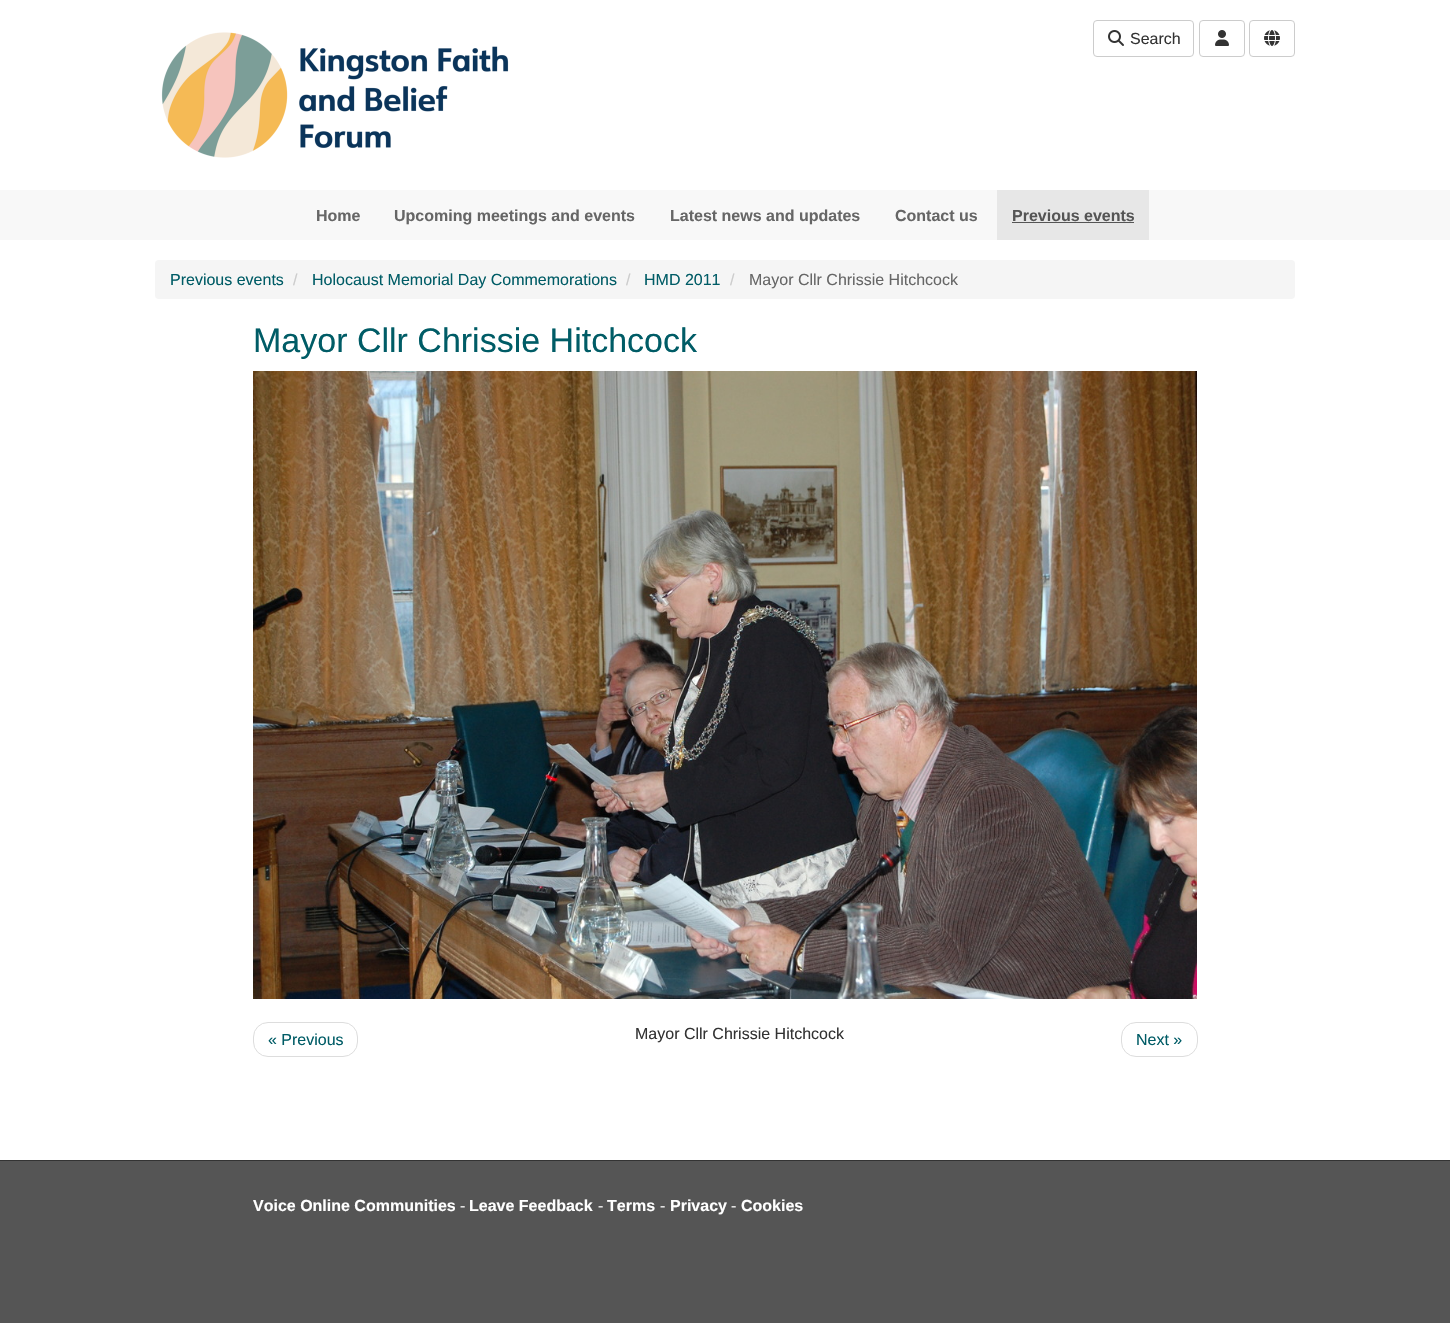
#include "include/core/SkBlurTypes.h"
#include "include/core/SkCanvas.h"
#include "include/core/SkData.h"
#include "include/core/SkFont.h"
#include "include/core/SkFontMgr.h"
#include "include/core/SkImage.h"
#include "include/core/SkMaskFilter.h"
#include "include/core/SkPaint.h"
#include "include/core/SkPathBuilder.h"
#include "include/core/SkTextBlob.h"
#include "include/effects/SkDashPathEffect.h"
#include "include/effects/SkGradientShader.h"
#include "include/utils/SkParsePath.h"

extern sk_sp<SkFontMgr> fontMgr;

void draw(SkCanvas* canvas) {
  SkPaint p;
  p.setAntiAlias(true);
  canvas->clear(SK_ColorWHITE);
  canvas->drawImageRect(SkImages::DeferredFromEncodedData(SkData::MakeFromFileName("images/1.png")), SkRect::MakeLTRB(161, 32, 509, 158), SkSamplingOptions());
  p.setStyle(SkPaint::kStroke_Style);
  p.setStrokeWidth(1);
  p.setColor(SkColorSetRGB(204, 204, 204));
  canvas->drawRoundRect(SkRect::MakeLTRB(1093.5f, 20.5f, 1193.5f, 56.5f), 3.5f, 3.5f, p);
  canvas->drawImageRect(SkImages::DeferredFromEncodedData(SkData::MakeFromFileName("images/2.png")), SkRect::MakeLTRB(1108, 30, 1124, 46), SkSamplingOptions());
  canvas->drawRoundRect(SkRect::MakeLTRB(1199.5f, 20.5f, 1244.5f, 56.5f), 3.5f, 3.5f, p);
  canvas->drawImageRect(SkImages::DeferredFromEncodedData(SkData::MakeFromFileName("images/3.png")), SkRect::MakeLTRB(1215, 30, 1229, 46), SkSamplingOptions());
  canvas->drawRoundRect(SkRect::MakeLTRB(1249.5f, 20.5f, 1294.5f, 56.5f), 3.5f, 3.5f, p);
  canvas->drawImageRect(SkImages::DeferredFromEncodedData(SkData::MakeFromFileName("images/4.png")), SkRect::MakeLTRB(1264, 30, 1280, 46), SkSamplingOptions());
  p.setStyle(SkPaint::kFill_Style);
  p.setColor(SkColorSetRGB(248, 248, 248));
  canvas->drawRect(SkRect::MakeLTRB(0, 190, 1450, 240), p);
  p.setColor(SkColorSetRGB(231, 231, 231));
  canvas->drawRect(SkRect::MakeLTRB(997, 190, 1149, 240), p);
  p.setColor(SkColorSetRGB(85, 85, 85));
  canvas->drawRect(SkRect::MakeLTRB(1012, 222, 1134, 223), p);
  p.setColor(SkColorSetRGB(245, 245, 245));
  canvas->drawRoundRect(SkRect::MakeLTRB(155, 260, 1295, 299), 4, 4, p);
  canvas->drawImageRect(SkImages::DeferredFromEncodedData(SkData::MakeFromFileName("images/5.png")), SkRect::MakeLTRB(253, 371, 1197, 999), SkSamplingOptions());
  p.setStyle(SkPaint::kStroke_Style);
  p.setColor(SkColorSetRGB(221, 221, 221));
  canvas->drawRoundRect(SkRect::MakeLTRB(253.5f, 1022.5f, 357.5f, 1056.5f), 14.5f, 14.5f, p);
  canvas->drawRoundRect(SkRect::MakeLTRB(1121.5f, 1022.5f, 1197.5f, 1056.5f), 14.5f, 14.5f, p);
  p.setStyle(SkPaint::kFill_Style);
  p.setColor(SkColorSetRGB(85, 85, 85));
  canvas->drawRect(SkRect::MakeLTRB(0, 1161, 1450, 1323), p);
  p.setColor(SkColorSetRGB(51, 51, 51));
  canvas->drawRect(SkRect::MakeLTRB(0, 1160, 1450, 1161), p);
  SkFont font1(fontMgr->matchFamilyStyle("Liberation Sans", SkFontStyle::Normal()), 16);
  font1.setSubpixel(true);
  canvas->drawString("Search", 1130, 44, font1, p);
  SkFont font2(fontMgr->matchFamilyStyle("Liberation Sans", SkFontStyle::Bold()), 16);
  font2.setSubpixel(true);
  p.setColor(SkColorSetRGB(102, 102, 102));
  canvas->drawString("Home", 316, 221, font2, p);
  canvas->drawString("Upcoming meetings and events", 394, 221, font2, p);
  canvas->drawString("Latest news and updates", 670, 221, font2, p);
  canvas->drawString("Contact us", 895, 221, font2, p);
  p.setColor(SkColorSetRGB(85, 85, 85));
  canvas->drawString("Previous events", 1012, 221, font2, p);
  p.setColor(SkColorSetRGB(0, 92, 102));
  canvas->drawString("Previous events", 170, 285, font1, p);
  p.setColor(SkColorSetRGB(204, 204, 204));
  canvas->drawString("/", 293, 285, font1, p);
  p.setColor(SkColorSetRGB(0, 92, 102));
  canvas->drawString("Holocaust Memorial Day Commemorations", 312, 285, font1, p);
  p.setColor(SkColorSetRGB(204, 204, 204));
  canvas->drawString("/", 626, 285, font1, p);
  p.setColor(SkColorSetRGB(0, 92, 102));
  canvas->drawString("HMD 2011", 644, 285, font1, p);
  p.setColor(SkColorSetRGB(204, 204, 204));
  canvas->drawString("/", 730, 285, font1, p);
  p.setColor(SkColorSetRGB(102, 102, 102));
  canvas->drawString("Mayor Cllr Chrissie Hitchcock", 749, 285, font1, p);
  SkFont font3(fontMgr->matchFamilyStyle("Liberation Sans", SkFontStyle::Normal()), 34);
  font3.setSubpixel(true);
  p.setColor(SkColorSetRGB(0, 92, 102));
  canvas->drawString("Mayor Cllr Chrissie Hitchcock", 253, 352, font3, p);
  canvas->drawString("« Previous", 268, 1045, font1, p);
  p.setColor(SkColorSetRGB(51, 51, 51));
  canvas->drawString("Mayor Cllr Chrissie Hitchcock", 635, 1039, font1, p);
  p.setColor(SkColorSetRGB(0, 92, 102));
  canvas->drawString("Next »", 1136, 1045, font1, p);
  p.setColor(SK_ColorWHITE);
  canvas->drawString("Voice Online Communities", 253, 1211, font2, p);
  p.setColor(SkColorSetRGB(238, 238, 238));
  canvas->drawString("-", 460, 1211, font1, p);
  p.setColor(SK_ColorWHITE);
  canvas->drawString("Leave Feedback", 469, 1211, font2, p);
  p.setColor(SkColorSetRGB(238, 238, 238));
  canvas->drawString("-", 598, 1211, font1, p);
  p.setColor(SK_ColorWHITE);
  canvas->drawString("Terms", 607, 1211, font2, p);
  p.setColor(SkColorSetRGB(238, 238, 238));
  canvas->drawString("-", 660, 1211, font1, p);
  p.setColor(SK_ColorWHITE);
  canvas->drawString("Privacy", 670, 1211, font2, p);
  p.setColor(SkColorSetRGB(238, 238, 238));
  canvas->drawString("-", 731, 1211, font1, p);
  p.setColor(SK_ColorWHITE);
  canvas->drawString("Cookies", 741, 1211, font2, p);
}
